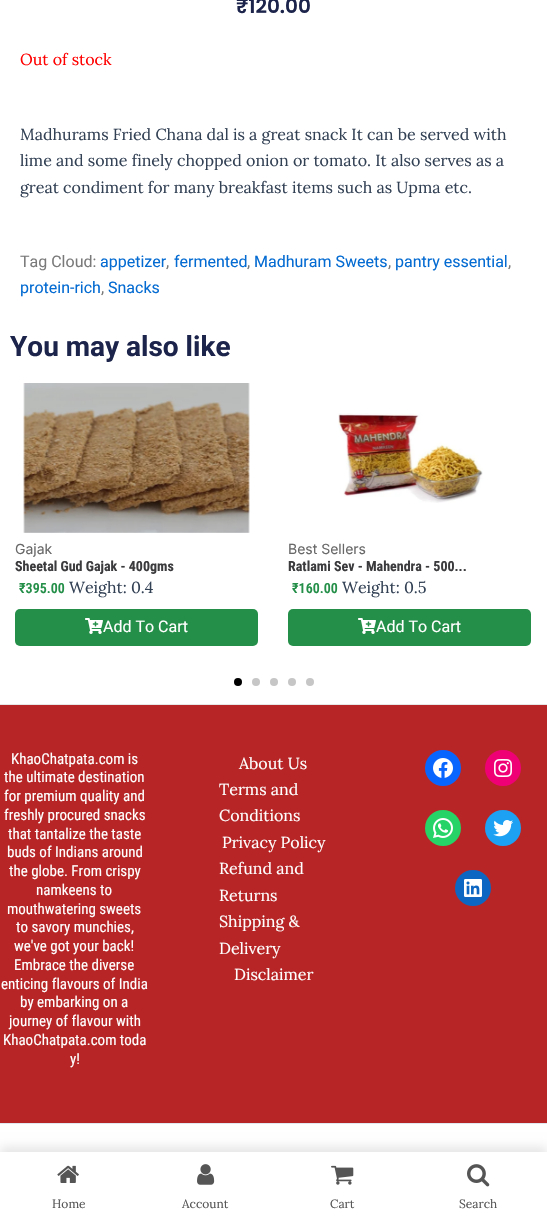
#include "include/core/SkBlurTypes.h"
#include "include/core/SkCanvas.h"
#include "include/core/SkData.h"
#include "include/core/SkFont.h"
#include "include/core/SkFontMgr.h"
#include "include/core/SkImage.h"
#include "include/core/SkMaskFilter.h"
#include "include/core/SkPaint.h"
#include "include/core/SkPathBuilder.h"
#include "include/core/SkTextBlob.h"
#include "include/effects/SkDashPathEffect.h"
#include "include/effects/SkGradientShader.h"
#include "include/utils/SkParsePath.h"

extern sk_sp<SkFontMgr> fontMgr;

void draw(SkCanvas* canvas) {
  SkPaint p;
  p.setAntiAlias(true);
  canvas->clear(SK_ColorWHITE);
  canvas->drawImageRect(SkImages::DeferredFromEncodedData(SkData::MakeFromFileName("images/1.png")), SkRect::MakeLTRB(23, 383, 250, 533), SkSamplingOptions());
  p.setColor(SkColorSetRGB(36, 143, 72));
  canvas->drawRoundRect(SkRect::MakeLTRB(15, 609, 258, 646), 5, 5, p);
  canvas->drawImageRect(SkImages::DeferredFromEncodedData(SkData::MakeFromFileName("images/2.png")), SkRect::MakeLTRB(85, 618, 103, 634), SkSamplingOptions());
  canvas->drawImageRect(SkImages::DeferredFromEncodedData(SkData::MakeFromFileName("images/3.png")), SkRect::MakeLTRB(338, 413, 483, 503), SkSamplingOptions());
  canvas->drawRoundRect(SkRect::MakeLTRB(288, 609, 531, 646), 5, 5, p);
  canvas->drawImageRect(SkImages::DeferredFromEncodedData(SkData::MakeFromFileName("images/2.png")), SkRect::MakeLTRB(358, 618, 376, 634), SkSamplingOptions());
  p.setColor(SK_ColorBLACK);
  canvas->drawCircle(238, 682, 4, p);
  p.setColor(SkColorSetRGB(198, 198, 198));
  canvas->drawCircle(256, 682, 4, p);
  canvas->drawCircle(274, 682, 4, p);
  canvas->drawCircle(292, 682, 4, p);
  canvas->drawCircle(310, 682, 4, p);
  p.setColor(SkColorSetRGB(183, 37, 38));
  canvas->drawRect(SkRect::MakeLTRB(0, 705, 547, 1123), p);
  p.setColor(SkColorSetRGB(230, 230, 230));
  canvas->drawRect(SkRect::MakeLTRB(0, 704, 547, 705), p);
  p.setColor(SkColorSetRGB(8, 102, 255));
  canvas->drawCircle(443, 768, 18, p);
  canvas->drawImageRect(SkImages::DeferredFromEncodedData(SkData::MakeFromFileName("images/4.png")), SkRect::MakeLTRB(433, 758, 453, 778), SkSamplingOptions());
  p.setColor(SkColorSetRGB(240, 0, 117));
  canvas->drawCircle(503, 768, 18, p);
  canvas->drawImageRect(SkImages::DeferredFromEncodedData(SkData::MakeFromFileName("images/5.png")), SkRect::MakeLTRB(494, 759, 512, 777), SkSamplingOptions());
  p.setColor(SkColorSetRGB(37, 211, 102));
  canvas->drawCircle(443, 828, 18, p);
  canvas->drawImageRect(SkImages::DeferredFromEncodedData(SkData::MakeFromFileName("images/6.png")), SkRect::MakeLTRB(433, 818, 453, 838), SkSamplingOptions());
  p.setColor(SkColorSetRGB(29, 161, 242));
  canvas->drawCircle(503, 828, 18, p);
  canvas->drawImageRect(SkImages::DeferredFromEncodedData(SkData::MakeFromFileName("images/7.png")), SkRect::MakeLTRB(493, 820, 513, 837), SkSamplingOptions());
  p.setColor(SkColorSetRGB(13, 102, 194));
  canvas->drawCircle(473, 888, 18, p);
  canvas->drawImageRect(SkImages::DeferredFromEncodedData(SkData::MakeFromFileName("images/8.png")), SkRect::MakeLTRB(464, 879, 482, 897), SkSamplingOptions());
  p.setColor(SkColorSetRGB(226, 232, 240));
  canvas->drawRect(SkRect::MakeLTRB(0, 1123, 547, 1124), p);
  p.setColor(SkColorSetARGB(26, 0, 0, 0));
  p.setMaskFilter(SkMaskFilter::MakeBlur(kNormal_SkBlurStyle, 5));
  canvas->drawRect(SkRect::MakeLTRB(0, 1147, 547, 1222), p);
  p.setMaskFilter(nullptr);
  p.setColor(SK_ColorWHITE);
  canvas->drawRect(SkRect::MakeLTRB(0, 1152, 547, 1227), p);
  canvas->drawImageRect(SkImages::DeferredFromEncodedData(SkData::MakeFromFileName("images/9.png")), SkRect::MakeLTRB(57, 1165, 79, 1183), SkSamplingOptions());
  canvas->drawImageRect(SkImages::DeferredFromEncodedData(SkData::MakeFromFileName("images/10.png")), SkRect::MakeLTRB(197, 1164, 215, 1185), SkSamplingOptions());
  canvas->drawImageRect(SkImages::DeferredFromEncodedData(SkData::MakeFromFileName("images/11.png")), SkRect::MakeLTRB(331, 1165, 354, 1185), SkSamplingOptions());
  canvas->drawImageRect(SkImages::DeferredFromEncodedData(SkData::MakeFromFileName("images/12.png")), SkRect::MakeLTRB(467, 1164, 490, 1187), SkSamplingOptions());
  SkFont font1(fontMgr->matchFamilyStyle("Poppins", SkFontStyle(600, SkFontStyle::kNormal_Width, SkFontStyle::kUpright_Slant)), 20);
  font1.setSubpixel(true);
  p.setColor(SkColorSetRGB(28, 36, 75));
  canvas->drawString("₹120.00", 236, 13, font1, p);
  SkFont font2(fontMgr->matchFamilyStyle("Lora", SkFontStyle::Normal()), 16);
  font2.setSubpixel(true);
  p.setColor(SkColorSetRGB(255, 0, 0));
  canvas->drawString("Out of stock", 20, 65, font2, p);
  p.setColor(SkColorSetRGB(51, 65, 85));
  canvas->drawString("Madhurams Fried Chana dal is a great snack It can be served with", 20, 140, font2, p);
  canvas->drawString("lime and some finely chopped onion or tomato. It also serves as a", 20, 166, font2, p);
  canvas->drawString("great condiment for many breakfast items such as Upma etc.", 20, 193, font2, p);
  SkFont font3(fontMgr->matchFamilyStyle("Roboto", SkFontStyle::Normal()), 16);
  font3.setSubpixel(true);
  p.setColor(SkColorSetRGB(122, 122, 122));
  canvas->drawString("Tag Cloud:", 20, 267, font3, p);
  p.setColor(SkColorSetRGB(4, 107, 210));
  canvas->drawString("appetizer", 100, 267, font3, p);
  p.setColor(SkColorSetRGB(122, 122, 122));
  canvas->drawString(",", 166, 267, font3, p);
  p.setColor(SkColorSetRGB(4, 107, 210));
  canvas->drawString("fermented", 174, 267, font3, p);
  p.setColor(SkColorSetRGB(122, 122, 122));
  canvas->drawString(",", 247, 267, font3, p);
  p.setColor(SkColorSetRGB(4, 107, 210));
  canvas->drawString("Madhuram Sweets", 254, 267, font3, p);
  p.setColor(SkColorSetRGB(122, 122, 122));
  canvas->drawString(",", 388, 267, font3, p);
  p.setColor(SkColorSetRGB(4, 107, 210));
  canvas->drawString("pantry essential", 395, 267, font3, p);
  p.setColor(SkColorSetRGB(122, 122, 122));
  canvas->drawString(",", 508, 267, font3, p);
  p.setColor(SkColorSetRGB(4, 107, 210));
  canvas->drawString("protein-rich", 20, 293, font3, p);
  p.setColor(SkColorSetRGB(122, 122, 122));
  canvas->drawString(",", 101, 293, font3, p);
  p.setColor(SkColorSetRGB(4, 107, 210));
  canvas->drawString("Snacks", 108, 293, font3, p);
  SkFont font4(fontMgr->matchFamilyStyle("Roboto", SkFontStyle::Bold()), 28);
  font4.setSubpixel(true);
  p.setColor(SkColorSetRGB(28, 36, 75));
  canvas->drawString("You may also like", 10, 356, font4, p);
  SkFont font5(fontMgr->matchFamilyStyle("Inter", SkFontStyle::Normal()), 14);
  font5.setSubpixel(true);
  p.setColor(SkColorSetRGB(105, 105, 105));
  canvas->drawString("Gajak", 15, 554, font5, p);
  SkFont font6(fontMgr->matchFamilyStyle("Roboto Condensed", SkFontStyle::Bold()), 14);
  font6.setSubpixel(true);
  p.setColor(SkColorSetRGB(59, 59, 62));
  canvas->drawString("Sheetal Gud Gajak - 400gms", 15, 571, font6, p);
  SkFont font7(fontMgr->matchFamilyStyle("Roboto Condensed", SkFontStyle(600, SkFontStyle::kNormal_Width, SkFontStyle::kUpright_Slant)), 14);
  font7.setSubpixel(true);
  p.setColor(SkColorSetRGB(36, 143, 72));
  canvas->drawString("₹395.00", 19, 593, font7, p);
  p.setColor(SkColorSetRGB(51, 65, 85));
  canvas->drawString("Weight: 0.4", 69, 593, font2, p);
  p.setColor(SK_ColorWHITE);
  canvas->drawString("Add To Cart", 103, 632, font3, p);
  p.setColor(SkColorSetRGB(105, 105, 105));
  canvas->drawString("Best Sellers", 288, 554, font5, p);
  p.setColor(SkColorSetRGB(59, 59, 62));
  canvas->drawString("Ratlami Sev - Mahendra - 500...", 288, 571, font6, p);
  p.setColor(SkColorSetRGB(36, 143, 72));
  canvas->drawString("₹160.00", 292, 593, font7, p);
  p.setColor(SkColorSetRGB(51, 65, 85));
  canvas->drawString("Weight: 0.5", 342, 593, font2, p);
  p.setColor(SK_ColorWHITE);
  canvas->drawString("Add To Cart", 376, 632, font3, p);
  SkFont font8(fontMgr->matchFamilyStyle("Roboto Condensed", SkFontStyle::Normal()), 15);
  font8.setSubpixel(true);
  canvas->drawString("KhaoChatpata.com is", 11, 764, font8, p);
  canvas->drawString("the ultimate destination", 4, 782, font8, p);
  canvas->drawString("for premium quality and", 4, 801, font8, p);
  canvas->drawString("freshly procured snacks", 4, 820, font8, p);
  canvas->drawString("that tantalize the taste", 8, 839, font8, p);
  canvas->drawString("buds of Indians around", 7, 857, font8, p);
  canvas->drawString("the globe. From crispy", 9, 876, font8, p);
  canvas->drawString("namkeens to", 36, 895, font8, p);
  canvas->drawString("mouthwatering sweets", 7, 914, font8, p);
  canvas->drawString("to savory munchies,", 16, 932, font8, p);
  canvas->drawString("we've got your back!", 14, 951, font8, p);
  canvas->drawString("Embrace the diverse", 14, 970, font8, p);
  canvas->drawString("enticing flavours of India", 1, 989, font8, p);
  canvas->drawString("by embarking on a", 20, 1007, font8, p);
  canvas->drawString("journey of flavour with", 9, 1026, font8, p);
  canvas->drawString("KhaoChatpata.com toda", 3, 1045, font8, p);
  canvas->drawString("y!", 70, 1064, font8, p);
  canvas->drawString("About Us", 239, 769, font2, p);
  canvas->drawString("Terms and", 219, 795, font2, p);
  canvas->drawString("Conditions", 219, 821, font2, p);
  canvas->drawString("Privacy Policy", 222, 848, font2, p);
  canvas->drawString("Refund and", 219, 874, font2, p);
  canvas->drawString("Returns", 219, 901, font2, p);
  canvas->drawString("Shipping &", 219, 927, font2, p);
  canvas->drawString("Delivery", 219, 954, font2, p);
  canvas->drawString("Disclaimer", 234, 980, font2, p);
  SkFont font9(fontMgr->matchFamilyStyle("Lora", SkFontStyle::Normal()), 12);
  font9.setSubpixel(true);
  p.setColor(SkColorSetRGB(85, 85, 85));
  canvas->drawString("Home", 52, 1208, font9, p);
  canvas->drawString("Account", 182, 1208, font9, p);
  canvas->drawString("Cart", 330, 1208, font9, p);
  canvas->drawString("Search", 459, 1208, font9, p);
}
